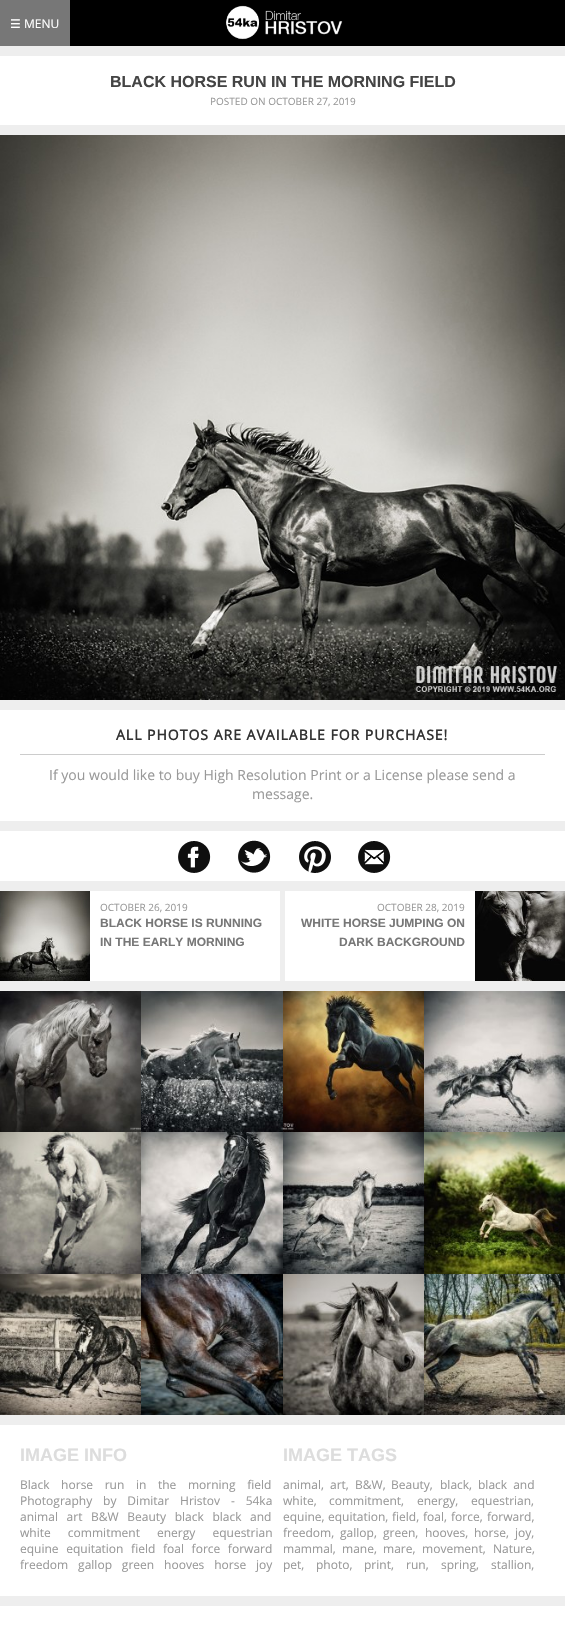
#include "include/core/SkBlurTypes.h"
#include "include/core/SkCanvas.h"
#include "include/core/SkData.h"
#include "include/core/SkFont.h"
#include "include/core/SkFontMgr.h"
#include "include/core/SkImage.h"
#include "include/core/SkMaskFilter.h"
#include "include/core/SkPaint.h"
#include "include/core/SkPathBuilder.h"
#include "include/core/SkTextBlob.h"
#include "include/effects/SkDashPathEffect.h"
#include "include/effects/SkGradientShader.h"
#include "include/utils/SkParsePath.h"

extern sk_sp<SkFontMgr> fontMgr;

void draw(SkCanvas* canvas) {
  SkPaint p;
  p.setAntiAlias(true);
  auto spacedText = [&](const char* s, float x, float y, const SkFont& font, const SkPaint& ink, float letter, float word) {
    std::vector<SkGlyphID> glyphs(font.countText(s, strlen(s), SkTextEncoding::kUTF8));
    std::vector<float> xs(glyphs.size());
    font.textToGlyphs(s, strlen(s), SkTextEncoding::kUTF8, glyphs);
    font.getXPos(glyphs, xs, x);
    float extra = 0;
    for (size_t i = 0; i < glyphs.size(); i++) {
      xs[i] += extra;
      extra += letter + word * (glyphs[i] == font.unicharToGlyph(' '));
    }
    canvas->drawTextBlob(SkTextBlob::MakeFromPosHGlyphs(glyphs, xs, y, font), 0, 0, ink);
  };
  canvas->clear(SkColorSetRGB(238, 238, 238));
  p.setColor(SK_ColorBLACK);
  canvas->drawRect(SkRect::MakeLTRB(70, 0, 565, 46), p);
  canvas->drawImageRect(SkImages::DeferredFromEncodedData(SkData::MakeFromFileName("images/1.png")), SkRect::MakeLTRB(226, 5, 343, 40), SkSamplingOptions());
  p.setColor(SkColorSetRGB(119, 119, 119));
  canvas->drawRect(SkRect::MakeLTRB(0, 0, 70, 46), p);
  p.setColor(SK_ColorWHITE);
  canvas->drawRect(SkRect::MakeLTRB(0, 56, 565, 125), p);
  canvas->drawImageRect(SkImages::DeferredFromEncodedData(SkData::MakeFromFileName("images/2.png")), SkRect::MakeLTRB(0, 135, 565, 700), SkSamplingOptions());
  canvas->drawRect(SkRect::MakeLTRB(0, 710, 565, 821), p);
  p.setColor(SkColorSetRGB(204, 204, 204));
  canvas->drawRect(SkRect::MakeLTRB(20, 754, 545, 755), p);
  p.setColor(SK_ColorWHITE);
  canvas->drawRect(SkRect::MakeLTRB(0, 831, 565, 881), p);
  canvas->drawImageRect(SkImages::DeferredFromEncodedData(SkData::MakeFromFileName("images/3.png")), SkRect::MakeLTRB(178, 841, 211, 873), SkSamplingOptions());
  canvas->drawImageRect(SkImages::DeferredFromEncodedData(SkData::MakeFromFileName("images/4.png")), SkRect::MakeLTRB(238, 840, 271, 873), SkSamplingOptions());
  canvas->drawImageRect(SkImages::DeferredFromEncodedData(SkData::MakeFromFileName("images/5.png")), SkRect::MakeLTRB(299, 841, 331, 873), SkSamplingOptions());
  canvas->drawImageRect(SkImages::DeferredFromEncodedData(SkData::MakeFromFileName("images/6.png")), SkRect::MakeLTRB(358, 841, 391, 873), SkSamplingOptions());
  canvas->drawRect(SkRect::MakeLTRB(90, 891, 280, 981), p);
  canvas->drawImageRect(SkImages::DeferredFromEncodedData(SkData::MakeFromFileName("images/7.png")), SkRect::MakeLTRB(0, 891, 90, 981), SkSamplingOptions());
  canvas->drawRect(SkRect::MakeLTRB(285, 891, 475, 981), p);
  canvas->drawImageRect(SkImages::DeferredFromEncodedData(SkData::MakeFromFileName("images/8.png")), SkRect::MakeLTRB(475, 891, 565, 981), SkSamplingOptions());
  canvas->drawImageRect(SkImages::DeferredFromEncodedData(SkData::MakeFromFileName("images/9.png")), SkRect::MakeLTRB(0, 991, 141, 1132), SkSamplingOptions());
  canvas->drawImageRect(SkImages::DeferredFromEncodedData(SkData::MakeFromFileName("images/10.png")), SkRect::MakeLTRB(141, 991, 283, 1132), SkSamplingOptions());
  canvas->drawImageRect(SkImages::DeferredFromEncodedData(SkData::MakeFromFileName("images/11.png")), SkRect::MakeLTRB(283, 991, 424, 1132), SkSamplingOptions());
  canvas->drawImageRect(SkImages::DeferredFromEncodedData(SkData::MakeFromFileName("images/12.png")), SkRect::MakeLTRB(424, 991, 565, 1132), SkSamplingOptions());
  canvas->drawImageRect(SkImages::DeferredFromEncodedData(SkData::MakeFromFileName("images/13.png")), SkRect::MakeLTRB(0, 1132, 141, 1274), SkSamplingOptions());
  canvas->drawImageRect(SkImages::DeferredFromEncodedData(SkData::MakeFromFileName("images/14.png")), SkRect::MakeLTRB(141, 1132, 283, 1274), SkSamplingOptions());
  canvas->drawImageRect(SkImages::DeferredFromEncodedData(SkData::MakeFromFileName("images/15.png")), SkRect::MakeLTRB(283, 1132, 424, 1274), SkSamplingOptions());
  canvas->drawImageRect(SkImages::DeferredFromEncodedData(SkData::MakeFromFileName("images/16.png")), SkRect::MakeLTRB(424, 1132, 565, 1274), SkSamplingOptions());
  canvas->drawImageRect(SkImages::DeferredFromEncodedData(SkData::MakeFromFileName("images/17.png")), SkRect::MakeLTRB(0, 1274, 141, 1415), SkSamplingOptions());
  canvas->drawImageRect(SkImages::DeferredFromEncodedData(SkData::MakeFromFileName("images/18.png")), SkRect::MakeLTRB(141, 1274, 283, 1415), SkSamplingOptions());
  canvas->drawImageRect(SkImages::DeferredFromEncodedData(SkData::MakeFromFileName("images/19.png")), SkRect::MakeLTRB(283, 1274, 424, 1415), SkSamplingOptions());
  canvas->drawImageRect(SkImages::DeferredFromEncodedData(SkData::MakeFromFileName("images/20.png")), SkRect::MakeLTRB(424, 1274, 565, 1415), SkSamplingOptions());
  canvas->drawRect(SkRect::MakeLTRB(0, 1425, 565, 1596), p);
  canvas->drawRect(SkRect::MakeLTRB(0, 1606, 565, 1639), p);
  SkFont font1(fontMgr->matchFamilyStyle("DejaVu Sans", SkFontStyle::Normal()), 12);
  font1.setSubpixel(true);
  canvas->drawString("☰", 10, 28, font1, p);
  SkFont font2(fontMgr->matchFamilyStyle("Open Sans", SkFontStyle::Normal()), 12);
  font2.setSubpixel(true);
  canvas->drawString("MENU", 24, 28, font2, p);
  SkFont font3(fontMgr->matchFamilyStyle("Liberation Sans", SkFontStyle::Bold()), 16);
  font3.setSubpixel(true);
  p.setColor(SkColorSetRGB(68, 68, 68));
  canvas->drawString("BLACK HORSE RUN IN THE MORNING FIELD", 110, 87, font3, p);
  SkFont font4(fontMgr->matchFamilyStyle("Open Sans", SkFontStyle::Normal()), 10);
  font4.setSubpixel(true);
  p.setColor(SkColorSetRGB(153, 153, 153));
  canvas->drawString("POSTED ON OCTOBER 27, 2019", 210, 105, font4, p);
  SkFont font5(fontMgr->matchFamilyStyle("Open Sans", SkFontStyle::Bold()), 14);
  font5.setSubpixel(true);
  p.setColor(SkColorSetRGB(51, 51, 51));
  spacedText("ALL PHOTOS ARE AVAILABLE FOR PURCHASE!", 116, 740, font5, p, 1, 0);
  SkFont font6(fontMgr->matchFamilyStyle("Open Sans", SkFontStyle::Normal()), 14);
  font6.setSubpixel(true);
  p.setColor(SkColorSetRGB(153, 153, 153));
  canvas->drawString("If you would like to buy High Resolution Print or a License please send a", 49, 780, font6, p);
  canvas->drawString("message.", 252, 799, font6, p);
  canvas->drawString("OCTOBER 26, 2019", 100, 911, font4, p);
  SkFont font7(fontMgr->matchFamilyStyle("Liberation Sans", SkFontStyle::Bold()), 12);
  font7.setSubpixel(true);
  p.setColor(SkColorSetRGB(119, 119, 119));
  canvas->drawString("BLACK HORSE IS RUNNING", 100, 927, font7, p);
  canvas->drawString("IN THE EARLY MORNING", 100, 946, font7, p);
  p.setColor(SkColorSetRGB(153, 153, 153));
  canvas->drawString("OCTOBER 28, 2019", 377, 911, font4, p);
  p.setColor(SkColorSetRGB(119, 119, 119));
  canvas->drawString("WHITE HORSE JUMPING ON", 301, 927, font7, p);
  canvas->drawString("DARK BACKGROUND", 339, 946, font7, p);
  SkFont font8(fontMgr->matchFamilyStyle("Liberation Sans", SkFontStyle::Bold()), 18);
  font8.setSubpixel(true);
  p.setColor(SkColorSetRGB(221, 221, 221));
  canvas->drawString("IMAGE INFO", 20, 1461, font8, p);
  p.setColor(SkColorSetRGB(153, 153, 153));
  spacedText("Black horse run in the morning field", 20, 1489, font2, p, 0, 8.5f);
  spacedText("Photography by Dimitar Hristov - 54ka", 20, 1505, font2, p, 0, 7.75f);
  spacedText("animal art B&W Beauty black black and", 20, 1521, font2, p, 0, 5.5f);
  spacedText("white commitment energy equestrian", 20, 1537, font2, p, 0, 14);
  spacedText("equine equitation field foal force forward", 20, 1553, font2, p, 0, 4.5f);
  spacedText("freedom gallop green hooves horse joy", 20, 1569, font2, p, 0, 6.75f);
  p.setColor(SkColorSetRGB(221, 221, 221));
  canvas->drawString("IMAGE TAGS", 283, 1461, font8, p);
  p.setColor(SkColorSetRGB(153, 153, 153));
  canvas->drawString("animal,", 283, 1489, font2, p);
  canvas->drawString("art,", 330, 1489, font2, p);
  canvas->drawString("B&W,", 355, 1489, font2, p);
  canvas->drawString("Beauty,", 391, 1489, font2, p);
  canvas->drawString("black,", 440, 1489, font2, p);
  spacedText("black and", 478, 1489, font2, p, 0, 3);
  canvas->drawString("white,", 283, 1505, font2, p);
  canvas->drawString("commitment,", 329, 1505, font2, p);
  canvas->drawString("energy,", 417, 1505, font2, p);
  canvas->drawString("equestrian,", 471, 1505, font2, p);
  canvas->drawString("equine,", 283, 1521, font2, p);
  canvas->drawString("equitation,", 328, 1521, font2, p);
  canvas->drawString("field,", 392, 1521, font2, p);
  canvas->drawString("foal,", 423, 1521, font2, p);
  canvas->drawString("force,", 451, 1521, font2, p);
  canvas->drawString("forward,", 487, 1521, font2, p);
  canvas->drawString("freedom,", 283, 1537, font2, p);
  canvas->drawString("gallop,", 340, 1537, font2, p);
  canvas->drawString("green,", 383, 1537, font2, p);
  canvas->drawString("hooves,", 425, 1537, font2, p);
  canvas->drawString("horse,", 474, 1537, font2, p);
  canvas->drawString("joy,", 515, 1537, font2, p);
  canvas->drawString("mammal,", 283, 1553, font2, p);
  canvas->drawString("mane,", 342, 1553, font2, p);
  canvas->drawString("mare,", 383, 1553, font2, p);
  canvas->drawString("movement,", 422, 1553, font2, p);
  canvas->drawString("Nature,", 493, 1553, font2, p);
  canvas->drawString("pet,", 283, 1569, font2, p);
  canvas->drawString("photo,", 316, 1569, font2, p);
  canvas->drawString("print,", 364, 1569, font2, p);
  canvas->drawString("run,", 406, 1569, font2, p);
  canvas->drawString("spring,", 441, 1569, font2, p);
  canvas->drawString("stallion,", 491, 1569, font2, p);
}
